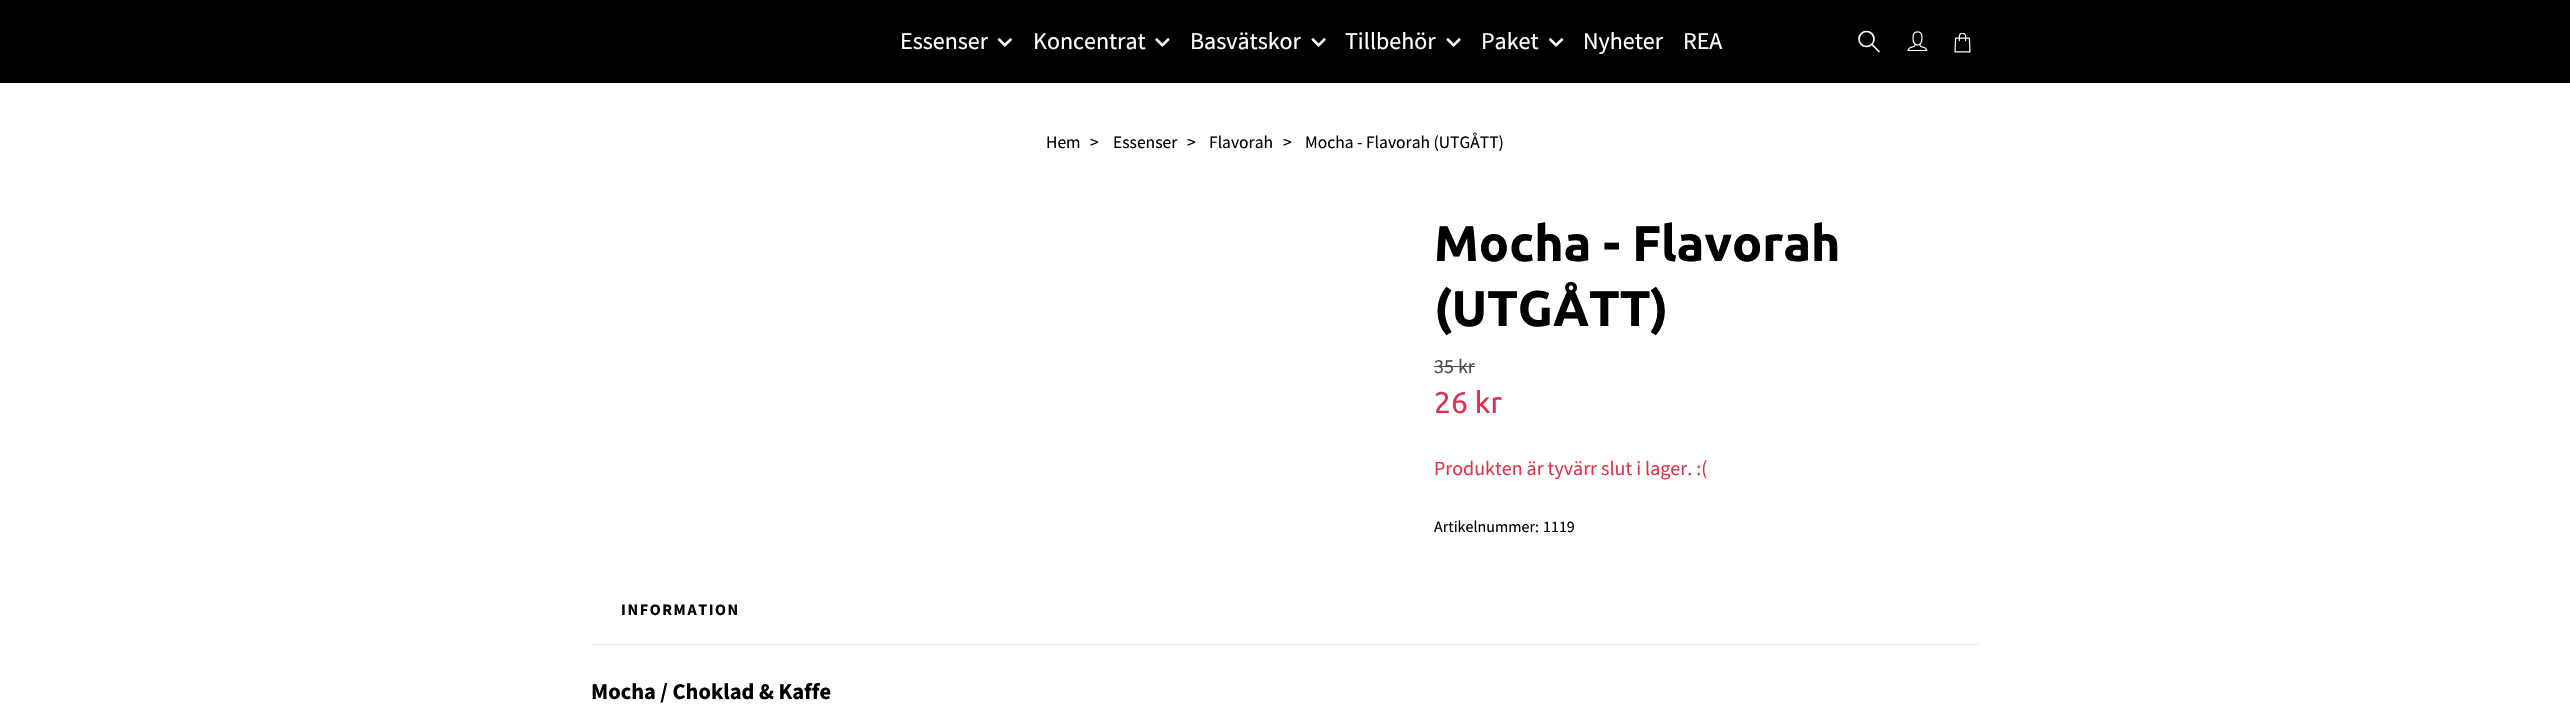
#include "include/core/SkBlurTypes.h"
#include "include/core/SkCanvas.h"
#include "include/core/SkData.h"
#include "include/core/SkFont.h"
#include "include/core/SkFontMgr.h"
#include "include/core/SkImage.h"
#include "include/core/SkMaskFilter.h"
#include "include/core/SkPaint.h"
#include "include/core/SkPathBuilder.h"
#include "include/core/SkTextBlob.h"
#include "include/effects/SkDashPathEffect.h"
#include "include/effects/SkGradientShader.h"
#include "include/utils/SkParsePath.h"

extern sk_sp<SkFontMgr> fontMgr;

void draw(SkCanvas* canvas) {
  SkPaint p;
  p.setAntiAlias(true);
  auto spacedText = [&](const char* s, float x, float y, const SkFont& font, const SkPaint& ink, float letter, float word) {
    std::vector<SkGlyphID> glyphs(font.countText(s, strlen(s), SkTextEncoding::kUTF8));
    std::vector<float> xs(glyphs.size());
    font.textToGlyphs(s, strlen(s), SkTextEncoding::kUTF8, glyphs);
    font.getXPos(glyphs, xs, x);
    float extra = 0;
    for (size_t i = 0; i < glyphs.size(); i++) {
      xs[i] += extra;
      extra += letter + word * (glyphs[i] == font.unicharToGlyph(' '));
    }
    canvas->drawTextBlob(SkTextBlob::MakeFromPosHGlyphs(glyphs, xs, y, font), 0, 0, ink);
  };
  canvas->clear(SK_ColorWHITE);
  p.setColor(SK_ColorBLACK);
  canvas->drawRect(SkRect::MakeLTRB(0, 0, 2570, 83), p);
  canvas->drawImageRect(SkImages::DeferredFromEncodedData(SkData::MakeFromFileName("images/1.png")), SkRect::MakeLTRB(997, 38, 1012, 47), SkSamplingOptions());
  canvas->drawImageRect(SkImages::DeferredFromEncodedData(SkData::MakeFromFileName("images/2.png")), SkRect::MakeLTRB(1155, 38, 1170, 47), SkSamplingOptions());
  canvas->drawImageRect(SkImages::DeferredFromEncodedData(SkData::MakeFromFileName("images/3.png")), SkRect::MakeLTRB(1311, 38, 1326, 47), SkSamplingOptions());
  canvas->drawImageRect(SkImages::DeferredFromEncodedData(SkData::MakeFromFileName("images/3.png")), SkRect::MakeLTRB(1446, 38, 1461, 47), SkSamplingOptions());
  canvas->drawImageRect(SkImages::DeferredFromEncodedData(SkData::MakeFromFileName("images/4.png")), SkRect::MakeLTRB(1549, 38, 1564, 47), SkSamplingOptions());
  p.setStyle(SkPaint::kStroke_Style);
  p.setStrokeWidth(1.7f);
  p.setStrokeCap(SkPaint::kRound_Cap);
  p.setStrokeJoin(SkPaint::kRound_Join);
  p.setColor(SK_ColorWHITE);
  canvas->drawPath(SkPathBuilder().moveTo(1872, 44.5f).lineTo(1879, 51.5f).detach(), p);
  p.setStrokeCap(SkPaint::kButt_Cap);
  p.setStrokeJoin(SkPaint::kMiter_Join);
  canvas->drawCircle(1866.5f, 39, 7.5f, p);
  canvas->drawImageRect(SkImages::DeferredFromEncodedData(SkData::MakeFromFileName("images/5.png")), SkRect::MakeLTRB(1907, 31, 1928, 51), SkSamplingOptions());
  canvas->drawImageRect(SkImages::DeferredFromEncodedData(SkData::MakeFromFileName("images/6.png")), SkRect::MakeLTRB(1954, 33, 1971, 53), SkSamplingOptions());
  p.setStyle(SkPaint::kFill_Style);
  p.setColor(SkColorSetRGB(77, 77, 77));
  canvas->drawRect(SkRect::MakeLTRB(1434, 366, 1475, 367), p);
  p.setColor(SkColorSetRGB(233, 233, 233));
  canvas->drawRect(SkRect::MakeLTRB(591, 644, 1979, 645), p);
  SkFont font1(fontMgr->matchFamilyStyle("Source Sans Pro", SkFontStyle::Normal()), 24);
  font1.setSubpixel(true);
  p.setColor(SK_ColorWHITE);
  canvas->drawString("Essenser", 900, 49, font1, p);
  canvas->drawString("Koncentrat", 1033, 49, font1, p);
  canvas->drawString("Basvätskor", 1190, 49, font1, p);
  canvas->drawString("Tillbehör", 1345, 49, font1, p);
  canvas->drawString("Paket", 1481, 49, font1, p);
  canvas->drawString("Nyheter", 1583, 49, font1, p);
  canvas->drawString("REA", 1683, 49, font1, p);
  SkFont font2(fontMgr->matchFamilyStyle("Source Sans Pro", SkFontStyle::Normal()), 17.5f);
  font2.setSubpixel(true);
  p.setColor(SK_ColorBLACK);
  canvas->drawString("Hem", 1046, 148, font2, p);
  canvas->drawString(">", 1090, 148, font2, p);
  canvas->drawString("Essenser", 1113, 148, font2, p);
  canvas->drawString(">", 1187, 148, font2, p);
  canvas->drawString("Flavorah", 1209, 148, font2, p);
  canvas->drawString(">", 1283, 148, font2, p);
  canvas->drawString("Mocha - Flavorah (UTGÅTT)", 1305, 148, font2, p);
  SkFont font3(fontMgr->matchFamilyStyle("Ubuntu", SkFontStyle::Bold()), 50);
  font3.setSubpixel(true);
  canvas->drawString("Mocha - Flavorah", 1434, 261, font3, p);
  canvas->drawString("(UTGÅTT)", 1434, 326, font3, p);
  SkFont font4(fontMgr->matchFamilyStyle("Source Sans Pro", SkFontStyle::Normal()), 20);
  font4.setSubpixel(true);
  p.setColor(SkColorSetRGB(77, 77, 77));
  canvas->drawString("35 kr", 1434, 373, font4, p);
  SkFont font5(fontMgr->matchFamilyStyle("Ubuntu", SkFontStyle::Normal()), 30);
  font5.setSubpixel(true);
  p.setColor(SkColorSetRGB(216, 52, 81));
  canvas->drawString("26 kr", 1434, 413, font5, p);
  p.setColor(SkColorSetRGB(220, 53, 69));
  canvas->drawString("Produkten är tyvärr slut i lager. :(", 1434, 475, font4, p);
  SkFont font6(fontMgr->matchFamilyStyle("Source Sans Pro", SkFontStyle::Normal()), 16);
  font6.setSubpixel(true);
  p.setColor(SK_ColorBLACK);
  canvas->drawString("Artikelnummer:", 1434, 532, font6, p);
  canvas->drawString("1119", 1543, 532, font6, p);
  SkFont font7(fontMgr->matchFamilyStyle("Source Sans Pro", SkFontStyle::Bold()), 16);
  font7.setSubpixel(true);
  spacedText("INFORMATION", 621, 615, font7, p, 1.6f, 0);
  SkFont font8(fontMgr->matchFamilyStyle("Source Sans Pro", SkFontStyle::Bold()), 22.5f);
  font8.setSubpixel(true);
  canvas->drawString("Mocha / Choklad & Kaffe", 591, 699, font8, p);
}
